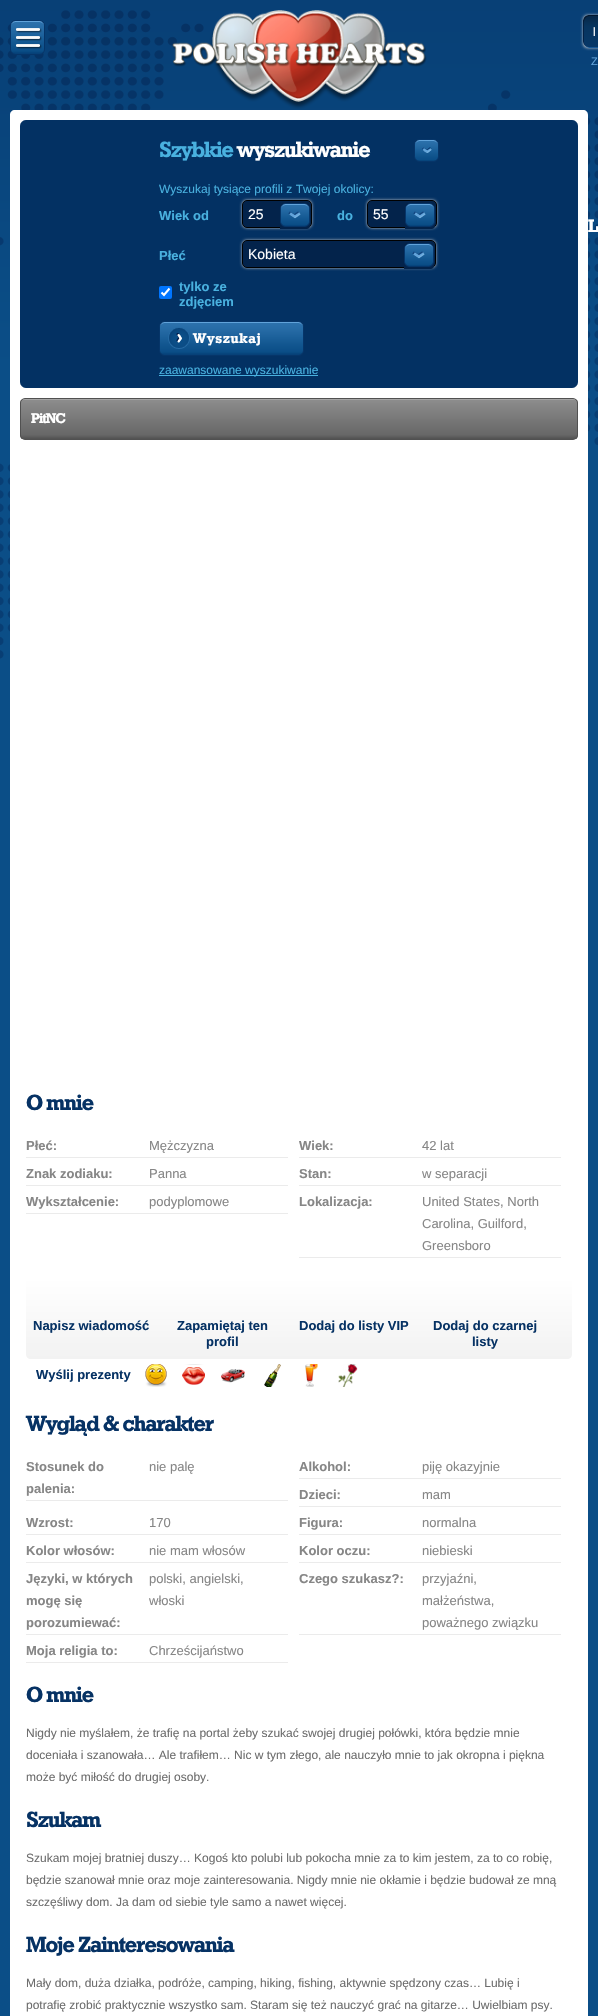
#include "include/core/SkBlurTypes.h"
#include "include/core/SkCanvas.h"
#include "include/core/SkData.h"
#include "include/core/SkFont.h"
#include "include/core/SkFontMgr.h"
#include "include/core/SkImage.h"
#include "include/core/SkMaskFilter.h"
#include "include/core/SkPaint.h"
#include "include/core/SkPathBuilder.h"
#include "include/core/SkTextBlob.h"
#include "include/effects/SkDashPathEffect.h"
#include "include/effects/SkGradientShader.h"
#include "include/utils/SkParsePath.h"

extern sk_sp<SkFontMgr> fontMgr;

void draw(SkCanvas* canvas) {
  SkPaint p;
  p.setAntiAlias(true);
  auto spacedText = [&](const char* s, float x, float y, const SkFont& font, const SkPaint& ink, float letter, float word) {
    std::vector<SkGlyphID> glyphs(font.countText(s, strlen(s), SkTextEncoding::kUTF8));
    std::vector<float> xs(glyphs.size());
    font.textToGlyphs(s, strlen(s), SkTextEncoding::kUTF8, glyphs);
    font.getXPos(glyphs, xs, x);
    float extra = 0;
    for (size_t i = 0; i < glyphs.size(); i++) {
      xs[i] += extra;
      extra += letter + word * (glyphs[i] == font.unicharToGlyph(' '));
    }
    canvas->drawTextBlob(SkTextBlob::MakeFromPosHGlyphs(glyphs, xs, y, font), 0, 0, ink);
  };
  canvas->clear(SkColorSetRGB(11, 78, 135));
  canvas->drawImageRect(SkImages::DeferredFromEncodedData(SkData::MakeFromFileName("images/1.png")), SkRect::MakeLTRB(0, 0, 598, 659), SkSamplingOptions());
  p.setColor(SK_ColorWHITE);
  canvas->drawPath(SkPathBuilder(SkPathFillType::kEvenOdd).moveTo(15, 110).lineTo(583, 110).cubicTo(586, 110, 588, 112, 588, 115).lineTo(588, 388).lineTo(10, 388).lineTo(10, 115).cubicTo(10, 112, 12, 110, 15, 110).close().moveTo(20, 120).lineTo(578, 120).lineTo(578, 388).lineTo(20, 388).close().detach(), p);
  p.setColor(SkColorSetRGB(3, 49, 99));
  canvas->drawRoundRect(SkRect::MakeLTRB(20, 120, 578, 388), 5, 5, p);
  canvas->drawImageRect(SkImages::DeferredFromEncodedData(SkData::MakeFromFileName("images/2.png")), SkRect::MakeLTRB(572, 120, 578, 126), SkSamplingOptions());
  canvas->drawImageRect(SkImages::DeferredFromEncodedData(SkData::MakeFromFileName("images/3.png")), SkRect::MakeLTRB(20, 120, 26, 126), SkSamplingOptions());
  canvas->drawImageRect(SkImages::DeferredFromEncodedData(SkData::MakeFromFileName("images/4.png")), SkRect::MakeLTRB(414, 139, 439, 162), SkSamplingOptions());
  p.setColor(SkColorSetRGB(204, 204, 204));
  p.setMaskFilter(SkMaskFilter::MakeBlur(kNormal_SkBlurStyle, 1.5f));
  canvas->drawRoundRect(SkRect::MakeLTRB(242, 200, 312, 228), 5, 5, p);
  p.setMaskFilter(nullptr);
  p.setColor(SkColorSetRGB(3, 35, 75));
  canvas->drawRoundRect(SkRect::MakeLTRB(242.5f, 200.5f, 311.5f, 227.5f), 4.5f, 4.5f, p);
  p.setStyle(SkPaint::kStroke_Style);
  p.setStrokeWidth(1);
  p.setColor(SK_ColorBLACK);
  canvas->drawRoundRect(SkRect::MakeLTRB(242.5f, 200.5f, 311.5f, 227.5f), 4.5f, 4.5f, p);
  p.setStyle(SkPaint::kFill_Style);
  p.setColor(SkColorSetRGB(3, 35, 75));
  canvas->drawPath(SkPathBuilder().moveTo(280, 203).lineTo(307, 203).cubicTo(308.5f, 203, 310, 204.5f, 310, 206).lineTo(310, 226).cubicTo(310, 227.5f, 308.5f, 229, 307, 229).lineTo(280, 229).close().detach(), p);
  canvas->drawImageRect(SkImages::DeferredFromEncodedData(SkData::MakeFromFileName("images/5.png")), SkRect::MakeLTRB(280, 203, 310, 227), SkSamplingOptions());
  p.setColor(SkColorSetRGB(204, 204, 204));
  p.setMaskFilter(SkMaskFilter::MakeBlur(kNormal_SkBlurStyle, 1.5f));
  canvas->drawRoundRect(SkRect::MakeLTRB(367, 200, 437, 228), 5, 5, p);
  p.setMaskFilter(nullptr);
  p.setColor(SkColorSetRGB(3, 35, 75));
  canvas->drawRoundRect(SkRect::MakeLTRB(367.5f, 200.5f, 436.5f, 227.5f), 4.5f, 4.5f, p);
  p.setStyle(SkPaint::kStroke_Style);
  p.setColor(SK_ColorBLACK);
  canvas->drawRoundRect(SkRect::MakeLTRB(367.5f, 200.5f, 436.5f, 227.5f), 4.5f, 4.5f, p);
  p.setStyle(SkPaint::kFill_Style);
  p.setColor(SkColorSetRGB(3, 35, 75));
  canvas->drawPath(SkPathBuilder().moveTo(405, 203).lineTo(432, 203).cubicTo(433.5f, 203, 435, 204.5f, 435, 206).lineTo(435, 226).cubicTo(435, 227.5f, 433.5f, 229, 432, 229).lineTo(405, 229).close().detach(), p);
  canvas->drawImageRect(SkImages::DeferredFromEncodedData(SkData::MakeFromFileName("images/5.png")), SkRect::MakeLTRB(405, 203, 435, 227), SkSamplingOptions());
  p.setColor(SkColorSetRGB(204, 204, 204));
  p.setMaskFilter(SkMaskFilter::MakeBlur(kNormal_SkBlurStyle, 1.5f));
  canvas->drawRoundRect(SkRect::MakeLTRB(242, 240, 436, 268), 5, 5, p);
  p.setMaskFilter(nullptr);
  p.setColor(SkColorSetRGB(3, 35, 75));
  canvas->drawRoundRect(SkRect::MakeLTRB(242.5f, 240.5f, 435.5f, 267.5f), 4.5f, 4.5f, p);
  p.setStyle(SkPaint::kStroke_Style);
  p.setColor(SK_ColorBLACK);
  canvas->drawRoundRect(SkRect::MakeLTRB(242.5f, 240.5f, 435.5f, 267.5f), 4.5f, 4.5f, p);
  p.setStyle(SkPaint::kFill_Style);
  p.setColor(SkColorSetRGB(3, 35, 75));
  canvas->drawPath(SkPathBuilder().moveTo(404, 243).lineTo(431, 243).cubicTo(432.5f, 243, 434, 244.5f, 434, 246).lineTo(434, 266).cubicTo(434, 267.5f, 432.5f, 269, 431, 269).lineTo(404, 269).close().detach(), p);
  canvas->drawImageRect(SkImages::DeferredFromEncodedData(SkData::MakeFromFileName("images/5.png")), SkRect::MakeLTRB(404, 243, 434, 267), SkSamplingOptions());
  p.setColor(SkColorSetRGB(0, 117, 255));
  canvas->drawRoundRect(SkRect::MakeLTRB(159, 286, 172, 299), 2, 2, p);
  p.setStyle(SkPaint::kStroke_Style);
  p.setStrokeWidth(2.1f);
  p.setColor(SK_ColorWHITE);
  canvas->drawPath(SkPathBuilder().moveTo(161.5f, 292.5f).lineTo(164, 295).lineTo(169.5f, 288.5f).detach(), p);
  canvas->drawImageRect(SkImages::DeferredFromEncodedData(SkData::MakeFromFileName("images/6.png")), SkRect::MakeLTRB(298, 321, 304, 356), SkSamplingOptions());
  canvas->drawImageRect(SkImages::DeferredFromEncodedData(SkData::MakeFromFileName("images/7.png")), SkRect::MakeLTRB(159, 321, 298, 356), SkSamplingOptions());
  p.setStyle(SkPaint::kFill_Style);
  p.setColor(SkColorSetRGB(73, 177, 223));
  canvas->drawRect(SkRect::MakeLTRB(159, 375, 318, 376), p);
  canvas->drawImageRect(SkImages::DeferredFromEncodedData(SkData::MakeFromFileName("images/8.png")), SkRect::MakeLTRB(20, 382, 26, 388), SkSamplingOptions());
  canvas->drawImageRect(SkImages::DeferredFromEncodedData(SkData::MakeFromFileName("images/9.png")), SkRect::MakeLTRB(572, 382, 578, 388), SkSamplingOptions());
  canvas->drawImageRect(SkImages::DeferredFromEncodedData(SkData::MakeFromFileName("images/10.png")), SkRect::MakeLTRB(10, 20, 45, 55), SkSamplingOptions());
  canvas->drawImageRect(SkImages::DeferredFromEncodedData(SkData::MakeFromFileName("images/11.png")), SkRect::MakeLTRB(172, 10, 427, 109), SkSamplingOptions());
  p.setColor(SkColorSetRGB(204, 204, 204));
  p.setMaskFilter(SkMaskFilter::MakeBlur(kNormal_SkBlurStyle, 1.5f));
  canvas->drawRoundRect(SkRect::MakeLTRB(583, 15, 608, 48), 5, 5, p);
  p.setMaskFilter(nullptr);
  canvas->drawImageRect(SkImages::DeferredFromEncodedData(SkData::MakeFromFileName("images/12.png")), SkRect::MakeLTRB(583, 15, 598, 48), SkSamplingOptions());
  p.setColor(SK_ColorWHITE);
  canvas->drawRect(SkRect::MakeLTRB(10, 388, 588, 2016), p);
  canvas->save();
  canvas->clipPath(SkPathBuilder().moveTo(25, 398).lineTo(573, 398).cubicTo(576, 398, 578, 400, 578, 403).lineTo(578, 435).cubicTo(578, 438, 576, 440, 573, 440).lineTo(25, 440).cubicTo(22, 440, 20, 438, 20, 435).lineTo(20, 403).cubicTo(20, 400, 22, 398, 25, 398).close().detach(), true);
  {
    const SkColor colors[] = {SkColorSetRGB(182, 182, 182), SkColorSetRGB(140, 140, 140), SkColorSetRGB(103, 103, 103), SkColorSetRGB(81, 81, 81)};
    const float stops[] = {0, 0.03f, 0.9f, 1};
    const SkPoint ends[] = {{299, 399}, {299, 439}};
    p.setShader(SkGradientShader::MakeLinear(ends, colors, stops, 4, SkTileMode::kClamp));
    p.setAlpha(255);
  }
  canvas->drawRect(SkRect::MakeLTRB(20, 399, 578, 439), p);
  canvas->restore();
  p.setStyle(SkPaint::kStroke_Style);
  p.setStrokeWidth(1);
  p.setShader(nullptr);
  p.setColor(SkColorSetRGB(81, 81, 81));
  canvas->drawRoundRect(SkRect::MakeLTRB(20.5f, 398.5f, 577.5f, 439.5f), 4.5f, 4.5f, p);
  p.setStyle(SkPaint::kFill_Style);
  p.setColor(SkColorSetRGB(235, 235, 235));
  canvas->drawRect(SkRect::MakeLTRB(26, 1157, 288, 1158), p);
  canvas->drawRect(SkRect::MakeLTRB(299, 1157, 561, 1158), p);
  canvas->drawRect(SkRect::MakeLTRB(26, 1185, 288, 1186), p);
  canvas->drawRect(SkRect::MakeLTRB(299, 1185, 561, 1186), p);
  canvas->drawRect(SkRect::MakeLTRB(26, 1213, 288, 1214), p);
  canvas->drawRect(SkRect::MakeLTRB(299, 1257, 561, 1258), p);
  {
    const SkColor colors[] = {SK_ColorWHITE, SkColorSetRGB(242, 242, 242)};
    const float stops[] = {0, 1};
    const SkPoint ends[] = {{299, 1278}, {299, 1359}};
    p.setShader(SkGradientShader::MakeLinear(ends, colors, stops, 2, SkTileMode::kClamp));
    p.setAlpha(255);
  }
  canvas->drawPath(SkPathBuilder().moveTo(26, 1278).lineTo(572, 1278).lineTo(572, 1354).cubicTo(572, 1357, 570, 1359, 567, 1359).lineTo(31, 1359).cubicTo(28, 1359, 26, 1357, 26, 1354).close().detach(), p);
  canvas->drawImageRect(SkImages::DeferredFromEncodedData(SkData::MakeFromFileName("images/13.png")), SkRect::MakeLTRB(145, 1364, 167, 1387), SkSamplingOptions());
  canvas->drawImageRect(SkImages::DeferredFromEncodedData(SkData::MakeFromFileName("images/14.png")), SkRect::MakeLTRB(182, 1364, 205, 1385), SkSamplingOptions());
  canvas->drawImageRect(SkImages::DeferredFromEncodedData(SkData::MakeFromFileName("images/15.png")), SkRect::MakeLTRB(221, 1369, 245, 1383), SkSamplingOptions());
  canvas->drawImageRect(SkImages::DeferredFromEncodedData(SkData::MakeFromFileName("images/16.png")), SkRect::MakeLTRB(264, 1364, 281, 1387), SkSamplingOptions());
  canvas->drawImageRect(SkImages::DeferredFromEncodedData(SkData::MakeFromFileName("images/17.png")), SkRect::MakeLTRB(305, 1364, 318, 1387), SkSamplingOptions());
  canvas->drawImageRect(SkImages::DeferredFromEncodedData(SkData::MakeFromFileName("images/18.png")), SkRect::MakeLTRB(338, 1364, 358, 1387), SkSamplingOptions());
  p.setShader(nullptr);
  p.setColor(SkColorSetRGB(235, 235, 235));
  canvas->drawRect(SkRect::MakeLTRB(26, 1500, 288, 1501), p);
  canvas->drawRect(SkRect::MakeLTRB(299, 1478, 561, 1479), p);
  canvas->drawRect(SkRect::MakeLTRB(299, 1506, 561, 1507), p);
  canvas->drawRect(SkRect::MakeLTRB(26, 1534, 288, 1535), p);
  canvas->drawRect(SkRect::MakeLTRB(299, 1534, 561, 1535), p);
  canvas->drawRect(SkRect::MakeLTRB(26, 1562, 288, 1563), p);
  canvas->drawRect(SkRect::MakeLTRB(299, 1562, 561, 1563), p);
  canvas->drawRect(SkRect::MakeLTRB(26, 1634, 288, 1635), p);
  canvas->drawRect(SkRect::MakeLTRB(299, 1634, 561, 1635), p);
  canvas->drawRect(SkRect::MakeLTRB(26, 1662, 288, 1663), p);
  SkFont font1(fontMgr->matchFamilyStyle("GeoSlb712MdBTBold", SkFontStyle::Bold()), 22);
  font1.setSubpixel(true);
  p.setColor(SkColorSetRGB(73, 177, 223));
  spacedText("Szybkie", 159, 157, font1, p, -1, 0);
  p.setColor(SK_ColorWHITE);
  spacedText("wyszukiwanie", 237, 157, font1, p, -1, 0);
  SkFont font2(fontMgr->matchFamilyStyle("Liberation Sans", SkFontStyle::Normal()), 12);
  font2.setSubpixel(true);
  p.setColor(SkColorSetRGB(73, 177, 223));
  canvas->drawString("Wyszukaj tysiące profili z Twojej okolicy:", 159, 193, font2, p);
  SkFont font3(fontMgr->matchFamilyStyle("Liberation Sans", SkFontStyle::Bold()), 13);
  font3.setSubpixel(true);
  canvas->drawString("Wiek od", 159, 220, font3, p);
  SkFont font4(fontMgr->matchFamilyStyle("Liberation Sans", SkFontStyle::Normal()), 14);
  font4.setSubpixel(true);
  p.setColor(SK_ColorWHITE);
  canvas->drawString("25", 248, 219, font4, p);
  p.setColor(SkColorSetRGB(73, 177, 223));
  canvas->drawString("do", 337, 220, font3, p);
  p.setColor(SK_ColorWHITE);
  canvas->drawString("55", 373, 219, font4, p);
  p.setColor(SkColorSetRGB(73, 177, 223));
  canvas->drawString("Płeć", 159, 260, font3, p);
  p.setColor(SK_ColorWHITE);
  canvas->drawString("Kobieta", 248, 259, font4, p);
  p.setColor(SkColorSetRGB(73, 177, 223));
  canvas->drawString("tylko ze", 179, 291, font3, p);
  canvas->drawString("zdjęciem", 179, 306, font3, p);
  SkFont font5(fontMgr->matchFamilyStyle("GeoSlb712MdBTBold", SkFontStyle::Bold()), 14);
  font5.setSubpixel(true);
  p.setColor(SK_ColorWHITE);
  spacedText("Wyszukaj", 193, 343, font5, p, 0.75f, 0);
  p.setColor(SkColorSetRGB(73, 177, 223));
  canvas->drawString("zaawansowane wyszukiwanie", 159, 374, font2, p);
  p.setColor(SK_ColorWHITE);
  canvas->drawString("l", 593, 36, font2, p);
  SkFont font6(fontMgr->matchFamilyStyle("Liberation Sans", SkFontStyle::Normal()), 11);
  font6.setSubpixel(true);
  p.setColor(SkColorSetRGB(97, 163, 218));
  canvas->drawString("Z", 591, 65, font6, p);
  SkFont font7(fontMgr->matchFamilyStyle("GeoSlb712MdBTBold", SkFontStyle::Bold()), 18);
  font7.setSubpixel(true);
  p.setColor(SK_ColorWHITE);
  canvas->drawString("L", 588, 232, font7, p);
  spacedText("PitNC", 31, 423, font5, p, -1, 0);
  p.setColor(SkColorSetRGB(6, 50, 100));
  spacedText("O mnie", 26, 1110, font1, p, -1, 0);
  p.setColor(SkColorSetRGB(134, 134, 134));
  canvas->drawString("Płeć:", 26, 1150, font3, p);
  SkFont font8(fontMgr->matchFamilyStyle("Liberation Sans", SkFontStyle::Normal()), 13);
  font8.setSubpixel(true);
  canvas->drawString("Mężczyzna", 149, 1150, font8, p);
  canvas->drawString("Wiek:", 299, 1150, font3, p);
  canvas->drawString("42 lat", 422, 1150, font8, p);
  canvas->drawString("Znak zodiaku:", 26, 1178, font3, p);
  canvas->drawString("Panna", 149, 1178, font8, p);
  canvas->drawString("Stan:", 299, 1178, font3, p);
  canvas->drawString("w separacji", 422, 1178, font8, p);
  canvas->drawString("Wykształcenie:", 26, 1206, font3, p);
  canvas->drawString("podyplomowe", 149, 1206, font8, p);
  canvas->drawString("Lokalizacja:", 299, 1206, font3, p);
  canvas->drawString("United States, North", 422, 1206, font8, p);
  canvas->drawString("Carolina, Guilford,", 422, 1228, font8, p);
  canvas->drawString("Greensboro", 422, 1250, font8, p);
  p.setColor(SkColorSetRGB(6, 50, 100));
  canvas->drawString("Napisz wiadomość", 33, 1330, font3, p);
  canvas->drawString("Zapamiętaj ten", 177, 1330, font3, p);
  canvas->drawString("profil", 206, 1346, font3, p);
  canvas->drawString("Dodaj do listy VIP", 299, 1330, font3, p);
  canvas->drawString("Dodaj do czarnej", 433, 1330, font3, p);
  canvas->drawString("listy", 472, 1346, font3, p);
  canvas->drawString("Wyślij prezenty", 36, 1379, font3, p);
  spacedText("Wygląd & charakter", 26, 1431, font1, p, -1, 0);
  p.setColor(SkColorSetRGB(134, 134, 134));
  canvas->drawString("Stosunek do", 26, 1471, font3, p);
  canvas->drawString("palenia:", 26, 1493, font3, p);
  canvas->drawString("nie palę", 149, 1471, font8, p);
  canvas->drawString("Alkohol:", 299, 1471, font3, p);
  canvas->drawString("piję okazyjnie", 422, 1471, font8, p);
  canvas->drawString("Dzieci:", 299, 1499, font3, p);
  canvas->drawString("mam", 422, 1499, font8, p);
  canvas->drawString("Wzrost:", 26, 1527, font3, p);
  canvas->drawString("170", 149, 1527, font8, p);
  canvas->drawString("Figura:", 299, 1527, font3, p);
  canvas->drawString("normalna", 422, 1527, font8, p);
  canvas->drawString("Kolor włosów:", 26, 1555, font3, p);
  canvas->drawString("nie mam włosów", 149, 1555, font8, p);
  canvas->drawString("Kolor oczu:", 299, 1555, font3, p);
  canvas->drawString("niebieski", 422, 1555, font8, p);
  canvas->drawString("Języki, w których", 26, 1583, font3, p);
  canvas->drawString("mogę się", 26, 1605, font3, p);
  canvas->drawString("porozumiewać:", 26, 1627, font3, p);
  canvas->drawString("polski, angielski,", 149, 1583, font8, p);
  canvas->drawString("włoski", 149, 1605, font8, p);
  canvas->drawString("Czego szukasz?:", 299, 1583, font3, p);
  canvas->drawString("przyjaźni,", 422, 1583, font8, p);
  canvas->drawString("małżeństwa,", 422, 1605, font8, p);
  canvas->drawString("poważnego związku", 422, 1627, font8, p);
  canvas->drawString("Moja religia to:", 26, 1655, font3, p);
  canvas->drawString("Chrześcijaństwo", 149, 1655, font8, p);
  p.setColor(SkColorSetRGB(6, 50, 100));
  spacedText("O mnie", 26, 1702, font1, p, -1, 0);
  p.setColor(SkColorSetRGB(109, 109, 109));
  canvas->drawString("Nigdy nie myślałem, że trafię na portal żeby szukać swojej drugiej połówki, która będzie mnie", 26, 1737, font2, p);
  canvas->drawString("doceniała i szanowała… Ale trafiłem… Nic w tym złego, ale nauczyło mnie to jak okropna i piękna", 26, 1759, font2, p);
  canvas->drawString("może być miłość do drugiej osoby.", 26, 1781, font2, p);
  p.setColor(SkColorSetRGB(6, 50, 100));
  spacedText("Szukam", 26, 1827, font1, p, -1, 0);
  p.setColor(SkColorSetRGB(109, 109, 109));
  canvas->drawString("Szukam mojej bratniej duszy… Kogoś kto polubi lub pokocha mnie za to kim jestem, za to co robię,", 26, 1862, font2, p);
  canvas->drawString("będzie szanował mnie oraz moje zainteresowania. Nigdy mnie nie okłamie i będzie budował ze mną", 26, 1884, font2, p);
  canvas->drawString("szczęśliwy dom. Ja dam od siebie tyle samo a nawet więcej.", 26, 1906, font2, p);
  p.setColor(SkColorSetRGB(6, 50, 100));
  spacedText("Moje Zainteresowania", 26, 1952, font1, p, -1, 0);
  p.setColor(SkColorSetRGB(109, 109, 109));
  canvas->drawString("Mały dom, duża działka, podróże, camping, hiking, fishing, aktywnie spędzony czas… Lubię i", 26, 1987, font2, p);
  canvas->drawString("potrafię zrobić praktycznie wszystko sam. Staram się też nauczyć grać na gitarze… Uwielbiam psy.", 26, 2009, font2, p);
}
